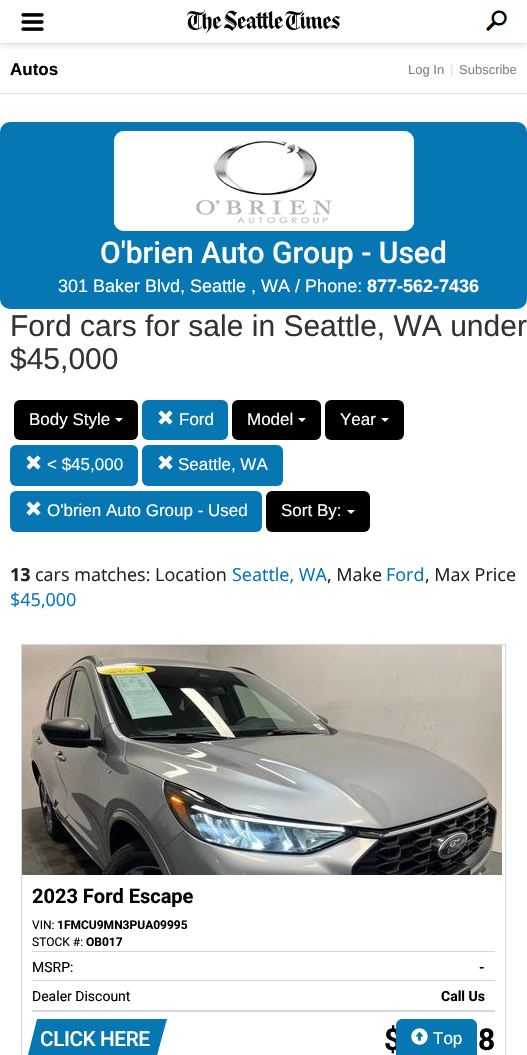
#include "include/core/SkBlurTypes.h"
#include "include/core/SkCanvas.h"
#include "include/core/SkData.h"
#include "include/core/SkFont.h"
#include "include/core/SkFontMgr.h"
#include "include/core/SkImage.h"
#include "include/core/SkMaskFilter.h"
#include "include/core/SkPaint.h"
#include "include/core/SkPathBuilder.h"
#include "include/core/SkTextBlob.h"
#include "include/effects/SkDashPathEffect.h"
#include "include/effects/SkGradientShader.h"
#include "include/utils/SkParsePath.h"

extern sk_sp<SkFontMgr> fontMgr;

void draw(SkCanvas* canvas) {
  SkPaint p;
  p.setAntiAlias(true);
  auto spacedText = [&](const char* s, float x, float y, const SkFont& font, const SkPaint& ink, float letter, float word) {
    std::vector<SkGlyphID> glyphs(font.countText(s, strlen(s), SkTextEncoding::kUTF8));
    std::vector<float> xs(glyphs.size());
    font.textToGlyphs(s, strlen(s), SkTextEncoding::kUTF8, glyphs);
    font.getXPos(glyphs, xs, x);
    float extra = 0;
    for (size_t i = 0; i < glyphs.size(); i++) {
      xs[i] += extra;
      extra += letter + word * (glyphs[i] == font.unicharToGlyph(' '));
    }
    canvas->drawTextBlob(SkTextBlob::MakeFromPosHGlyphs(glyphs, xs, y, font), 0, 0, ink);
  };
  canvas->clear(SK_ColorWHITE);
  canvas->save();
  canvas->clipRect(SkRect::MakeLTRB(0, 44, 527, 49));
  p.setColor(SkColorSetARGB(26, 0, 0, 0));
  p.setMaskFilter(SkMaskFilter::MakeBlur(kNormal_SkBlurStyle, 3.5f));
  canvas->drawRect(SkRect::MakeLTRB(0, 2, 527, 46), p);
  p.setMaskFilter(nullptr);
  canvas->restore();
  p.setColor(SkColorSetRGB(224, 224, 224));
  canvas->drawRect(SkRect::MakeLTRB(0, 43, 527, 44), p);
  canvas->drawImageRect(SkImages::DeferredFromEncodedData(SkData::MakeFromFileName("images/1.png")), SkRect::MakeLTRB(21, 13, 44, 31), SkSamplingOptions());
  canvas->drawImageRect(SkImages::DeferredFromEncodedData(SkData::MakeFromFileName("images/2.png")), SkRect::MakeLTRB(187, 10, 340, 33), SkSamplingOptions());
  canvas->drawImageRect(SkImages::DeferredFromEncodedData(SkData::MakeFromFileName("images/3.png")), SkRect::MakeLTRB(486, 10, 507, 31), SkSamplingOptions());
  canvas->drawRect(SkRect::MakeLTRB(0, 93, 527, 94), p);
  p.setColor(SkColorSetRGB(7, 119, 179));
  canvas->drawRoundRect(SkRect::MakeLTRB(0, 122, 527, 309), 10, 10, p);
  p.setColor(SK_ColorWHITE);
  canvas->drawRoundRect(SkRect::MakeLTRB(114, 131, 414, 231), 10, 10, p);
  canvas->drawImageRect(SkImages::DeferredFromEncodedData(SkData::MakeFromFileName("images/4.png")), SkRect::MakeLTRB(114, 131, 414, 231), SkSamplingOptions());
  p.setColor(SK_ColorBLACK);
  canvas->drawRoundRect(SkRect::MakeLTRB(14, 400, 138, 440), 6, 6, p);
  p.setColor(SK_ColorWHITE);
  canvas->drawPath(SkPathBuilder().moveTo(115, 418).lineTo(123, 418).lineTo(119, 422).close().detach(), p);
  p.setColor(SkColorSetRGB(7, 119, 179));
  canvas->drawRoundRect(SkRect::MakeLTRB(142, 400, 228, 440), 6, 6, p);
  canvas->drawImageRect(SkImages::DeferredFromEncodedData(SkData::MakeFromFileName("images/5.png")), SkRect::MakeLTRB(158, 410, 173, 425), SkSamplingOptions());
  p.setColor(SK_ColorBLACK);
  canvas->drawRoundRect(SkRect::MakeLTRB(232, 400, 321, 440), 6, 6, p);
  p.setColor(SK_ColorWHITE);
  canvas->drawPath(SkPathBuilder().moveTo(298, 418).lineTo(306, 418).lineTo(302, 422).close().detach(), p);
  p.setColor(SK_ColorBLACK);
  canvas->drawRoundRect(SkRect::MakeLTRB(325, 400, 404, 440), 6, 6, p);
  p.setColor(SK_ColorWHITE);
  canvas->drawPath(SkPathBuilder().moveTo(381, 418).lineTo(389, 418).lineTo(385, 422).close().detach(), p);
  p.setColor(SkColorSetRGB(7, 119, 179));
  canvas->drawRoundRect(SkRect::MakeLTRB(10, 445, 138, 486), 6, 6, p);
  canvas->drawImageRect(SkImages::DeferredFromEncodedData(SkData::MakeFromFileName("images/5.png")), SkRect::MakeLTRB(26, 455, 41, 470), SkSamplingOptions());
  canvas->drawRoundRect(SkRect::MakeLTRB(142, 445, 283, 486), 6, 6, p);
  canvas->drawImageRect(SkImages::DeferredFromEncodedData(SkData::MakeFromFileName("images/5.png")), SkRect::MakeLTRB(158, 455, 173, 470), SkSamplingOptions());
  canvas->drawRoundRect(SkRect::MakeLTRB(10, 491, 262, 532), 6, 6, p);
  canvas->drawImageRect(SkImages::DeferredFromEncodedData(SkData::MakeFromFileName("images/5.png")), SkRect::MakeLTRB(26, 501, 41, 516), SkSamplingOptions());
  p.setColor(SK_ColorBLACK);
  canvas->drawRoundRect(SkRect::MakeLTRB(266, 491, 370, 532), 6, 6, p);
  p.setColor(SK_ColorWHITE);
  canvas->drawPath(SkPathBuilder().moveTo(347, 510).lineTo(355, 510).lineTo(351, 514).close().detach(), p);
  p.setStyle(SkPaint::kStroke_Style);
  p.setStrokeWidth(1);
  p.setColor(SkColorSetRGB(212, 216, 217));
  canvas->drawRect(SkRect::MakeLTRB(21.5f, 644.5f, 505.5f, 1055.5f), p);
  canvas->drawImageRect(SkImages::DeferredFromEncodedData(SkData::MakeFromFileName("images/6.png")), SkRect::MakeLTRB(22, 645, 502, 875), SkSamplingOptions());
  p.setStyle(SkPaint::kFill_Style);
  canvas->drawRect(SkRect::MakeLTRB(32, 951, 495, 952), p);
  canvas->drawRect(SkRect::MakeLTRB(32, 980, 495, 981), p);
  canvas->drawRect(SkRect::MakeLTRB(32, 1010, 495, 1012), p);
  p.setColor(SkColorSetRGB(7, 119, 179));
  canvas->drawPath(SkPathBuilder().moveTo(37, 1019).lineTo(167, 1019).lineTo(156, 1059).lineTo(27, 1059).close().detach(), p);
  SkFont font1(fontMgr->matchFamilyStyle("Liberation Sans", SkFontStyle::Bold()), 17);
  font1.setSubpixel(true);
  p.setColor(SK_ColorBLACK);
  canvas->drawString("Autos", 10, 75, font1, p);
  SkFont font2(fontMgr->matchFamilyStyle("Liberation Sans", SkFontStyle::Normal()), 13);
  font2.setSubpixel(true);
  p.setColor(SkColorSetRGB(126, 131, 139));
  canvas->drawString("Log In", 408, 74, font2, p);
  p.setColor(SkColorSetRGB(224, 224, 224));
  canvas->drawString("|", 450, 74, font2, p);
  p.setColor(SkColorSetRGB(126, 131, 139));
  canvas->drawString("Subscribe", 459, 74, font2, p);
  SkFont font3(fontMgr->matchFamilyStyle("Roboto", SkFontStyle(500, SkFontStyle::kNormal_Width, SkFontStyle::kUpright_Slant)), 30);
  font3.setSubpixel(true);
  p.setColor(SK_ColorWHITE);
  canvas->drawString("O'brien Auto Group - Used", 100, 263, font3, p);
  SkFont font4(fontMgr->matchFamilyStyle("Liberation Sans", SkFontStyle::Normal()), 18);
  font4.setSubpixel(true);
  canvas->drawString("301 Baker Blvd, Seattle , WA / Phone:", 58, 292, font4, p);
  SkFont font5(fontMgr->matchFamilyStyle("Liberation Sans", SkFontStyle::Bold()), 18);
  font5.setSubpixel(true);
  canvas->drawString("877-562-7436", 367, 292, font5, p);
  SkFont font6(fontMgr->matchFamilyStyle("Liberation Sans", SkFontStyle::Normal()), 30);
  font6.setSubpixel(true);
  p.setColor(SkColorSetRGB(51, 51, 51));
  canvas->drawString("Ford cars for sale in Seattle, WA under", 10, 336, font6, p);
  canvas->drawString("$45,000", 10, 369, font6, p);
  SkFont font7(fontMgr->matchFamilyStyle("Liberation Sans", SkFontStyle::Normal()), 17);
  font7.setSubpixel(true);
  p.setColor(SK_ColorWHITE);
  canvas->drawString("Body Style", 29, 425, font7, p);
  canvas->drawString("Ford", 179, 425, font7, p);
  canvas->drawString("Model", 247, 425, font7, p);
  canvas->drawString("Year", 340, 425, font7, p);
  canvas->drawString("< $45,000", 47, 470, font7, p);
  canvas->drawString("Seattle, WA", 178, 470, font7, p);
  canvas->drawString("O'brien Auto Group - Used", 47, 516, font7, p);
  canvas->drawString("Sort By:", 281, 516, font7, p);
  SkFont font8(fontMgr->matchFamilyStyle("Open Sans", SkFontStyle::Bold()), 18);
  font8.setSubpixel(true);
  p.setColor(SkColorSetRGB(35, 31, 32));
  canvas->drawString("13", 10, 581, font8, p);
  SkFont font9(fontMgr->matchFamilyStyle("Open Sans", SkFontStyle::Normal()), 18);
  font9.setSubpixel(true);
  canvas->drawString("cars matches: Location", 35, 581, font9, p);
  p.setColor(SkColorSetRGB(0, 115, 189));
  canvas->drawString("Seattle, WA", 232, 581, font9, p);
  p.setColor(SkColorSetRGB(35, 31, 32));
  canvas->drawString(", Make", 327, 581, font9, p);
  p.setColor(SkColorSetRGB(0, 115, 189));
  canvas->drawString("Ford", 386, 581, font9, p);
  p.setColor(SkColorSetRGB(35, 31, 32));
  canvas->drawString(", Max Price", 425, 581, font9, p);
  p.setColor(SkColorSetRGB(0, 115, 189));
  canvas->drawString("$45,000", 10, 606, font9, p);
  SkFont font10(fontMgr->matchFamilyStyle("Roboto", SkFontStyle::Bold()), 20);
  font10.setSubpixel(true);
  p.setColor(SK_ColorBLACK);
  canvas->drawString("2023 Ford Escape", 32, 903, font10, p);
  SkFont font11(fontMgr->matchFamilyStyle("Roboto", SkFontStyle::Normal()), 12);
  font11.setSubpixel(true);
  canvas->drawString("VIN:", 32, 929, font11, p);
  SkFont font12(fontMgr->matchFamilyStyle("Roboto", SkFontStyle::Bold()), 12);
  font12.setSubpixel(true);
  canvas->drawString("1FMCU9MN3PUA09995", 57, 929, font12, p);
  canvas->drawString("STOCK #:", 32, 946, font11, p);
  canvas->drawString("OB017", 86, 946, font12, p);
  SkFont font13(fontMgr->matchFamilyStyle("Roboto", SkFontStyle::Normal()), 14);
  font13.setSubpixel(true);
  canvas->drawString("MSRP:", 32, 972, font13, p);
  SkFont font14(fontMgr->matchFamilyStyle("Roboto", SkFontStyle::Bold()), 14);
  font14.setSubpixel(true);
  canvas->drawString("-", 479, 972, font14, p);
  canvas->drawString("Dealer Discount", 32, 1001, font13, p);
  canvas->drawString("Call Us", 441, 1001, font14, p);
  SkFont font15(fontMgr->matchFamilyStyle("Roboto", SkFontStyle(500, SkFontStyle::kNormal_Width, SkFontStyle::kUpright_Slant)), 20.75f);
  font15.setSubpixel(true);
  p.setColor(SK_ColorWHITE);
  spacedText("CLICK HERE", 40, 1046, font15, p, -0.4f, 0);
  SkFont font16(fontMgr->matchFamilyStyle("Roboto", SkFontStyle::Bold()), 30);
  font16.setSubpixel(true);
  p.setColor(SK_ColorBLACK);
  canvas->drawString("$", 384, 1050, font16, p);
  canvas->drawString("8", 478, 1050, font16, p);
  p.setColor(SkColorSetRGB(7, 119, 179));
  canvas->drawRoundRect(SkRect::MakeLTRB(396.5f, 1019.5f, 476.5f, 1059.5f), 5.5f, 5.5f, p);
  p.setStyle(SkPaint::kStroke_Style);
  canvas->drawRoundRect(SkRect::MakeLTRB(396.5f, 1019.5f, 476.5f, 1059.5f), 5.5f, 5.5f, p);
  canvas->drawImageRect(SkImages::DeferredFromEncodedData(SkData::MakeFromFileName("images/7.png")), SkRect::MakeLTRB(411, 1028, 428, 1045), SkSamplingOptions());
  p.setStyle(SkPaint::kFill_Style);
  p.setColor(SK_ColorWHITE);
  canvas->drawString("Top", 433, 1044, font7, p);
}
